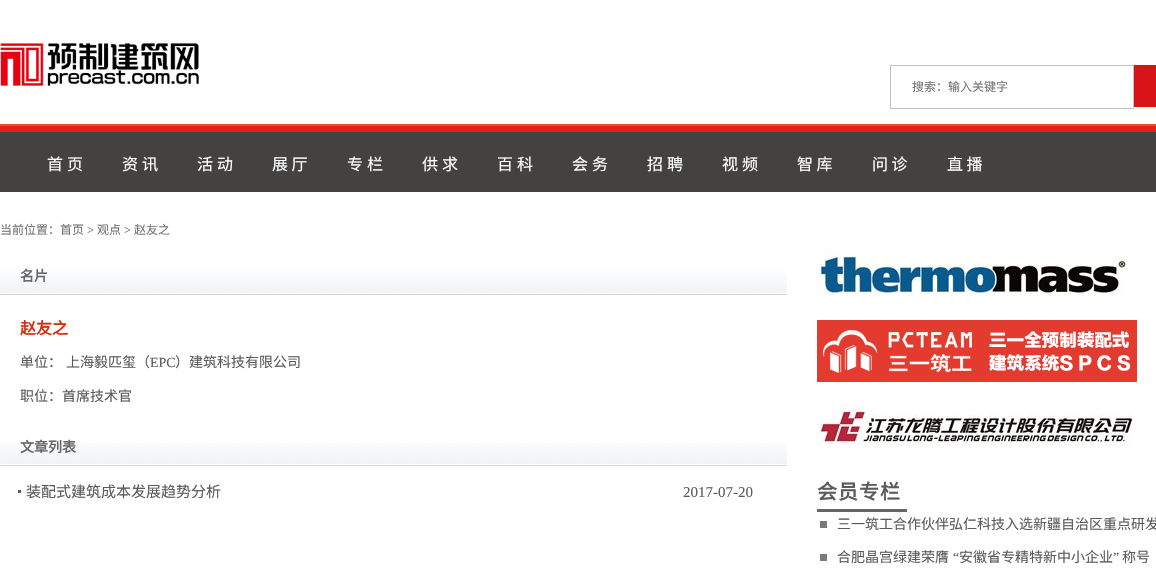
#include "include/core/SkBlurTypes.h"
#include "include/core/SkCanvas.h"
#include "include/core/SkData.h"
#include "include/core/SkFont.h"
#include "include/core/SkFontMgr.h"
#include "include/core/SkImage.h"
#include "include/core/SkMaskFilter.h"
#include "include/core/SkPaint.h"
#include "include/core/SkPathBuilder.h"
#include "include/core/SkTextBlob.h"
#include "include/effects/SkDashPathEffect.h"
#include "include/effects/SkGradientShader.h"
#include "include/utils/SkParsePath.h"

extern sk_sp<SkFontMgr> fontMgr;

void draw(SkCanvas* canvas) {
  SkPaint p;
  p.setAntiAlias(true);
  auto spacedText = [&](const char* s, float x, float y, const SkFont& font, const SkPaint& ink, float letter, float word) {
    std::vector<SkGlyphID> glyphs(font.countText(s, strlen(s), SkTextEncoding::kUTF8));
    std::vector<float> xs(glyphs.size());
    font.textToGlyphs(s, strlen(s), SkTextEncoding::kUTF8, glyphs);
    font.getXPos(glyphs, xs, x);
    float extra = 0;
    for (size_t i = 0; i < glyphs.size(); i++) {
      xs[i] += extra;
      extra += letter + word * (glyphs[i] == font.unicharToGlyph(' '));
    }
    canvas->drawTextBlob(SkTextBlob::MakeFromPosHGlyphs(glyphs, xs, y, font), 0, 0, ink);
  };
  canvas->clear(SK_ColorWHITE);
  canvas->drawImageRect(SkImages::DeferredFromEncodedData(SkData::MakeFromFileName("images/1.png")), SkRect::MakeLTRB(0, 43, 199, 86), SkSamplingOptions());
  p.setStyle(SkPaint::kStroke_Style);
  p.setStrokeWidth(1);
  p.setColor(SkColorSetRGB(195, 194, 194));
  canvas->drawRect(SkRect::MakeLTRB(890.5f, 65.5f, 1133.5f, 108.5f), p);
  p.setStyle(SkPaint::kFill_Style);
  p.setColor(SkColorSetRGB(215, 21, 24));
  canvas->drawRect(SkRect::MakeLTRB(1134, 65, 1156, 107), p);
  p.setColor(SkColorSetRGB(231, 77, 46));
  canvas->drawRect(SkRect::MakeLTRB(0, 124, 1156, 126), p);
  p.setColor(SkColorSetRGB(230, 33, 26));
  canvas->drawRect(SkRect::MakeLTRB(0, 126, 1156, 132), p);
  p.setColor(SkColorSetRGB(68, 66, 65));
  canvas->drawRect(SkRect::MakeLTRB(0, 132, 1156, 192), p);
  canvas->drawImageRect(SkImages::DeferredFromEncodedData(SkData::MakeFromFileName("images/2.png")), SkRect::MakeLTRB(0, 248, 787, 293), SkSamplingOptions());
  p.setColor(SkColorSetRGB(208, 212, 216));
  canvas->drawRect(SkRect::MakeLTRB(0, 294, 787, 295), p);
  canvas->drawImageRect(SkImages::DeferredFromEncodedData(SkData::MakeFromFileName("images/3.png")), SkRect::MakeLTRB(0, 443, 787, 464), SkSamplingOptions());
  canvas->drawRect(SkRect::MakeLTRB(0, 465, 787, 466), p);
  p.setColor(SkColorSetRGB(91, 89, 90));
  canvas->drawRect(SkRect::MakeLTRB(18, 490, 21, 493), p);
  canvas->drawImageRect(SkImages::DeferredFromEncodedData(SkData::MakeFromFileName("images/4.png")), SkRect::MakeLTRB(817, 249, 1127, 298), SkSamplingOptions());
  canvas->drawImageRect(SkImages::DeferredFromEncodedData(SkData::MakeFromFileName("images/5.png")), SkRect::MakeLTRB(817, 320, 1137, 382), SkSamplingOptions());
  canvas->drawImageRect(SkImages::DeferredFromEncodedData(SkData::MakeFromFileName("images/6.png")), SkRect::MakeLTRB(817, 400, 1135, 446), SkSamplingOptions());
  p.setColor(SkColorSetRGB(102, 102, 102));
  canvas->drawRect(SkRect::MakeLTRB(817, 509, 907, 512), p);
  p.setColor(SkColorSetRGB(123, 123, 123));
  canvas->drawRect(SkRect::MakeLTRB(820, 521, 827, 528), p);
  canvas->drawRect(SkRect::MakeLTRB(820, 554, 827, 561), p);
  SkFont font1(fontMgr->matchFamilyStyle("Noto Sans CJK SC", SkFontStyle::Normal()), 12);
  font1.setSubpixel(true);
  p.setColor(SkColorSetRGB(117, 117, 117));
  canvas->drawString("搜索：输入关键字", 912, 91, font1, p);
  SkFont font2(fontMgr->matchFamilyStyle("Noto Sans CJK SC", SkFontStyle::Normal()), 16);
  font2.setSubpixel(true);
  p.setColor(SK_ColorWHITE);
  canvas->drawString("首", 47, 170, font2, p);
  canvas->drawString("页", 67, 170, font2, p);
  canvas->drawString("资", 122, 170, font2, p);
  canvas->drawString("讯", 142, 170, font2, p);
  canvas->drawString("活", 197, 170, font2, p);
  canvas->drawString("动", 217, 170, font2, p);
  canvas->drawString("展 厅", 272, 170, font2, p);
  canvas->drawString("专", 347, 170, font2, p);
  canvas->drawString("栏", 367, 170, font2, p);
  canvas->drawString("供", 422, 170, font2, p);
  canvas->drawString("求", 442, 170, font2, p);
  canvas->drawString("百", 497, 170, font2, p);
  canvas->drawString("科", 517, 170, font2, p);
  canvas->drawString("会", 572, 170, font2, p);
  canvas->drawString("务", 592, 170, font2, p);
  canvas->drawString("招", 647, 170, font2, p);
  canvas->drawString("聘", 667, 170, font2, p);
  canvas->drawString("视", 722, 170, font2, p);
  canvas->drawString("频", 742, 170, font2, p);
  canvas->drawString("智 库", 797, 170, font2, p);
  canvas->drawString("问 诊", 872, 170, font2, p);
  canvas->drawString("直 播", 947, 170, font2, p);
  p.setColor(SkColorSetRGB(117, 117, 117));
  canvas->drawString("当前位置：首页", 0, 234, font1, p);
  SkFont font3(fontMgr->matchFamilyStyle("Liberation Serif", SkFontStyle::Normal()), 12);
  font3.setSubpixel(true);
  canvas->drawString(">", 87, 234, font3, p);
  canvas->drawString("观点", 97, 234, font1, p);
  canvas->drawString(">", 124, 234, font3, p);
  canvas->drawString("赵友之", 134, 234, font1, p);
  SkFont font4(fontMgr->matchFamilyStyle("Noto Sans CJK SC", SkFontStyle::Bold()), 14);
  font4.setSubpixel(true);
  p.setColor(SkColorSetRGB(102, 102, 102));
  canvas->drawString("名片", 20, 281, font4, p);
  SkFont font5(fontMgr->matchFamilyStyle("Noto Sans CJK SC", SkFontStyle::Bold()), 16);
  font5.setSubpixel(true);
  p.setColor(SkColorSetRGB(214, 43, 13));
  canvas->drawString("赵友之", 20, 334, font5, p);
  SkFont font6(fontMgr->matchFamilyStyle("Noto Sans CJK SC", SkFontStyle::Normal()), 14);
  font6.setSubpixel(true);
  p.setColor(SkColorSetRGB(92, 91, 91));
  canvas->drawString("单位：", 20, 367, font6, p);
  canvas->drawString("上海毅匹玺（", 66, 367, font6, p);
  SkFont font7(fontMgr->matchFamilyStyle("Liberation Serif", SkFontStyle::Normal()), 14);
  font7.setSubpixel(true);
  canvas->drawString("EPC", 150, 367, font7, p);
  canvas->drawString("）建筑科技有限公司", 175, 367, font6, p);
  canvas->drawString("职位：首席技术官", 20, 401, font6, p);
  p.setColor(SkColorSetRGB(102, 102, 102));
  canvas->drawString("文章列表", 20, 452, font4, p);
  SkFont font8(fontMgr->matchFamilyStyle("Noto Sans CJK SC", SkFontStyle::Normal()), 15);
  font8.setSubpixel(true);
  p.setColor(SkColorSetRGB(92, 91, 91));
  canvas->drawString("装配式建筑成本发展趋势分析", 26, 497, font8, p);
  SkFont font9(fontMgr->matchFamilyStyle("Liberation Serif", SkFontStyle::Normal()), 15);
  font9.setSubpixel(true);
  canvas->drawString("2017-07-20", 683, 497, font9, p);
  SkFont font10(fontMgr->matchFamilyStyle("Noto Sans CJK SC", SkFontStyle::Bold()), 20);
  font10.setSubpixel(true);
  spacedText("会员专栏", 817, 499, font10, p, 1, 0);
  canvas->drawString("三一筑工合作伙伴弘仁科技入选新疆自治区重点研发", 837, 529, font6, p);
  canvas->drawString("合肥晶宫绿建荣膺", 837, 562, font6, p);
  canvas->drawString("“", 953, 562, font7, p);
  canvas->drawString("安徽省专精特新中小企业", 959, 562, font6, p);
  canvas->drawString("”", 1113, 562, font7, p);
  canvas->drawString("称号", 1122, 562, font6, p);
}
